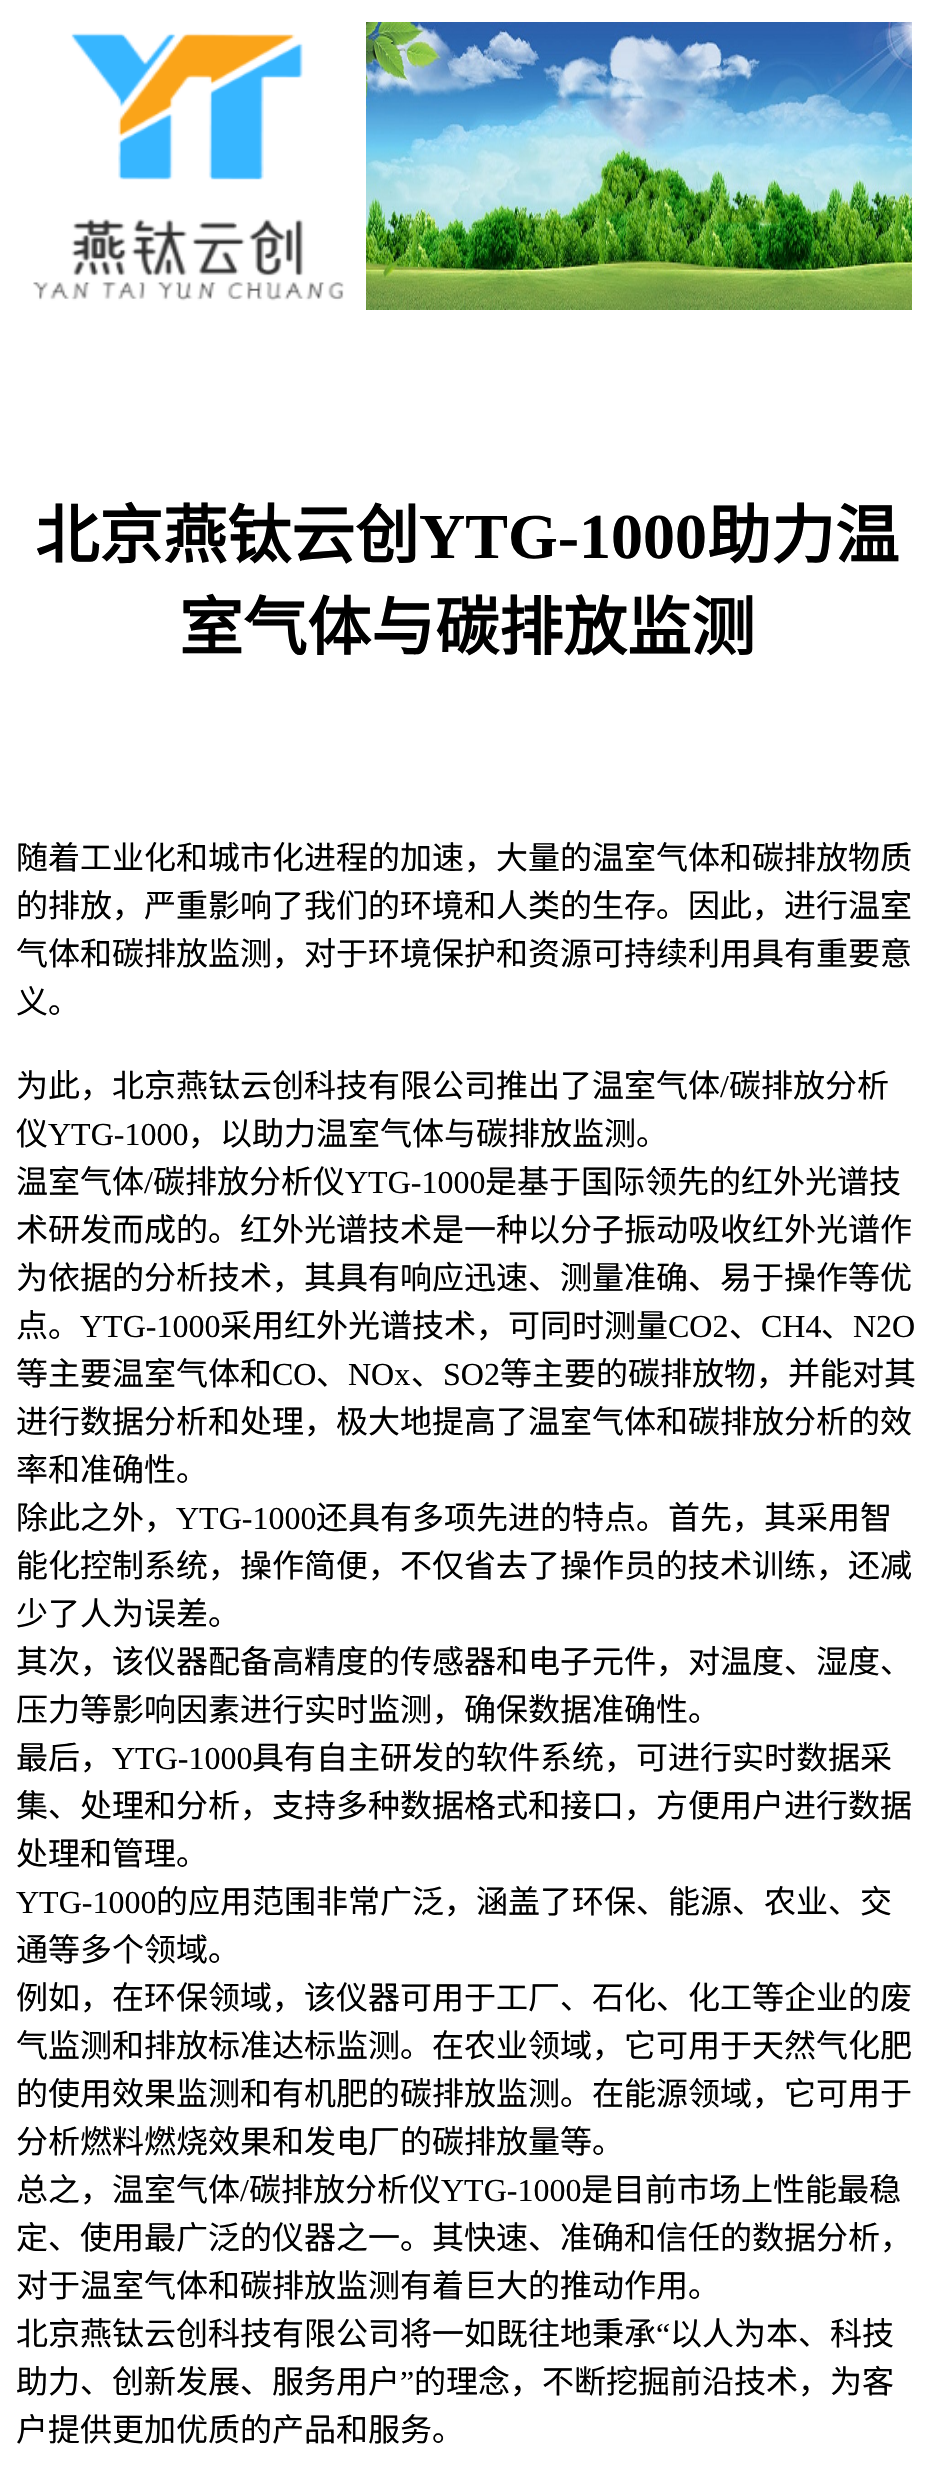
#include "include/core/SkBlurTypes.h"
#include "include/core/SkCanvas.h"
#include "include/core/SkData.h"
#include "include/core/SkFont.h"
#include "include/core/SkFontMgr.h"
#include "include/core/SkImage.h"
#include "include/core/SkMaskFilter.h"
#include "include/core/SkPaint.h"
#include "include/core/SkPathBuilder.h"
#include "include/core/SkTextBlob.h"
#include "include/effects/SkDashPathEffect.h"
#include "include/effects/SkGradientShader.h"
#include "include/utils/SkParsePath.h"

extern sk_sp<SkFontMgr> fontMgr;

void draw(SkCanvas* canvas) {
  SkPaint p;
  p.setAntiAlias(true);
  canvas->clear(SK_ColorWHITE);
  canvas->drawImageRect(SkImages::DeferredFromEncodedData(SkData::MakeFromFileName("images/1.png")), SkRect::MakeLTRB(33, 33, 344, 301), SkSamplingOptions());
  canvas->drawImageRect(SkImages::DeferredFromEncodedData(SkData::MakeFromFileName("images/2.png")), SkRect::MakeLTRB(366, 22, 912, 310), SkSamplingOptions());
  SkFont font1(fontMgr->matchFamilyStyle("Noto Sans CJK SC", SkFontStyle::Bold()), 64);
  font1.setSubpixel(true);
  p.setColor(SK_ColorBLACK);
  canvas->drawString("北京燕钛云创", 35, 558, font1, p);
  SkFont font2(fontMgr->matchFamilyStyle("Liberation Serif", SkFontStyle::Bold()), 64);
  font2.setSubpixel(true);
  canvas->drawString("YTG-1000", 419, 558, font2, p);
  canvas->drawString("助力温", 707, 558, font1, p);
  canvas->drawString("室气体与碳排放监测", 179, 650, font1, p);
  SkFont font3(fontMgr->matchFamilyStyle("Noto Sans CJK SC", SkFontStyle::Normal()), 32);
  font3.setSubpixel(true);
  canvas->drawString("随着工业化和城市化进程的加速，大量的温室气体和碳排放物质", 16, 869, font3, p);
  canvas->drawString("的排放，严重影响了我们的环境和人类的生存。因此，进行温室", 16, 917, font3, p);
  canvas->drawString("气体和碳排放监测，对于环境保护和资源可持续利用具有重要意", 16, 965, font3, p);
  canvas->drawString("义。", 16, 1013, font3, p);
  canvas->drawString("为此，北京燕钛云创科技有限公司推出了温室气体", 16, 1097, font3, p);
  SkFont font4(fontMgr->matchFamilyStyle("Liberation Serif", SkFontStyle::Normal()), 32);
  font4.setSubpixel(true);
  canvas->drawString("/", 720, 1097, font4, p);
  canvas->drawString("碳排放分析", 729, 1097, font3, p);
  canvas->drawString("仪", 16, 1145, font3, p);
  canvas->drawString("YTG-1000", 48, 1145, font4, p);
  canvas->drawString("，以助力温室气体与碳排放监测。", 188, 1145, font3, p);
  canvas->drawString("温室气体", 16, 1193, font3, p);
  canvas->drawString("/", 144, 1193, font4, p);
  canvas->drawString("碳排放分析仪", 153, 1193, font3, p);
  canvas->drawString("YTG-1000", 345, 1193, font4, p);
  canvas->drawString("是基于国际领先的红外光谱技", 485, 1193, font3, p);
  canvas->drawString("术研发而成的。红外光谱技术是一种以分子振动吸收红外光谱作", 16, 1241, font3, p);
  canvas->drawString("为依据的分析技术，其具有响应迅速、测量准确、易于操作等优", 16, 1289, font3, p);
  canvas->drawString("点。", 16, 1337, font3, p);
  canvas->drawString("YTG-1000", 80, 1337, font4, p);
  canvas->drawString("采用红外光谱技术，可同时测量", 220, 1337, font3, p);
  canvas->drawString("CO2", 668, 1337, font4, p);
  canvas->drawString("、", 729, 1337, font3, p);
  canvas->drawString("CH4", 761, 1337, font4, p);
  canvas->drawString("、", 821, 1337, font3, p);
  canvas->drawString("N2O", 853, 1337, font4, p);
  canvas->drawString("等主要温室气体和", 16, 1385, font3, p);
  canvas->drawString("CO", 272, 1385, font4, p);
  canvas->drawString("、", 316, 1385, font3, p);
  canvas->drawString("NOx", 348, 1385, font4, p);
  canvas->drawString("、", 411, 1385, font3, p);
  canvas->drawString("SO2", 443, 1385, font4, p);
  canvas->drawString("等主要的碳排放物，并能对其", 500, 1385, font3, p);
  canvas->drawString("进行数据分析和处理，极大地提高了温室气体和碳排放分析的效", 16, 1433, font3, p);
  canvas->drawString("率和准确性。", 16, 1481, font3, p);
  canvas->drawString("除此之外，", 16, 1529, font3, p);
  canvas->drawString("YTG-1000", 176, 1529, font4, p);
  canvas->drawString("还具有多项先进的特点。首先，其采用智", 316, 1529, font3, p);
  canvas->drawString("能化控制系统，操作简便，不仅省去了操作员的技术训练，还减", 16, 1577, font3, p);
  canvas->drawString("少了人为误差。", 16, 1625, font3, p);
  canvas->drawString("其次，该仪器配备高精度的传感器和电子元件，对温度、湿度、", 16, 1673, font3, p);
  canvas->drawString("压力等影响因素进行实时监测，确保数据准确性。", 16, 1721, font3, p);
  canvas->drawString("最后，", 16, 1769, font3, p);
  canvas->drawString("YTG-1000", 112, 1769, font4, p);
  canvas->drawString("具有自主研发的软件系统，可进行实时数据采", 252, 1769, font3, p);
  canvas->drawString("集、处理和分析，支持多种数据格式和接口，方便用户进行数据", 16, 1817, font3, p);
  canvas->drawString("处理和管理。", 16, 1865, font3, p);
  canvas->drawString("YTG-1000", 16, 1913, font4, p);
  canvas->drawString("的应用范围非常广泛，涵盖了环保、能源、农业、交", 156, 1913, font3, p);
  canvas->drawString("通等多个领域。", 16, 1961, font3, p);
  canvas->drawString("例如，在环保领域，该仪器可用于工厂、石化、化工等企业的废", 16, 2009, font3, p);
  canvas->drawString("气监测和排放标准达标监测。在农业领域，它可用于天然气化肥", 16, 2057, font3, p);
  canvas->drawString("的使用效果监测和有机肥的碳排放监测。在能源领域，它可用于", 16, 2105, font3, p);
  canvas->drawString("分析燃料燃烧效果和发电厂的碳排放量等。", 16, 2153, font3, p);
  canvas->drawString("总之，温室气体", 16, 2201, font3, p);
  canvas->drawString("/", 240, 2201, font4, p);
  canvas->drawString("碳排放分析仪", 249, 2201, font3, p);
  canvas->drawString("YTG-1000", 441, 2201, font4, p);
  canvas->drawString("是目前市场上性能最稳", 581, 2201, font3, p);
  canvas->drawString("定、使用最广泛的仪器之一。其快速、准确和信任的数据分析，", 16, 2249, font3, p);
  canvas->drawString("对于温室气体和碳排放监测有着巨大的推动作用。", 16, 2297, font3, p);
  canvas->drawString("北京燕钛云创科技有限公司将一如既往地秉承", 16, 2345, font3, p);
  canvas->drawString("“", 656, 2345, font4, p);
  canvas->drawString("以人为本、科技", 670, 2345, font3, p);
  canvas->drawString("助力、创新发展、服务用户", 16, 2393, font3, p);
  canvas->drawString("”", 400, 2393, font4, p);
  canvas->drawString("的理念，不断挖掘前沿技术，为客", 414, 2393, font3, p);
  canvas->drawString("户提供更加优质的产品和服务。", 16, 2441, font3, p);
}
